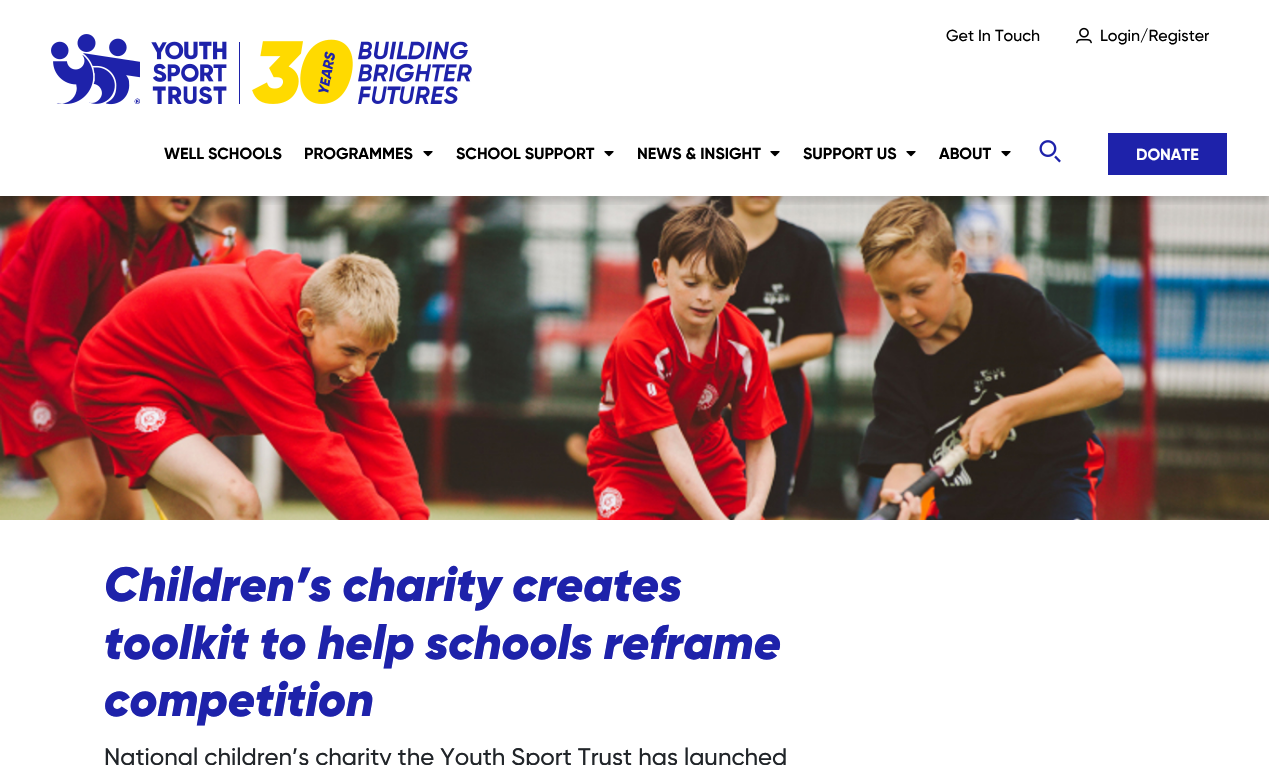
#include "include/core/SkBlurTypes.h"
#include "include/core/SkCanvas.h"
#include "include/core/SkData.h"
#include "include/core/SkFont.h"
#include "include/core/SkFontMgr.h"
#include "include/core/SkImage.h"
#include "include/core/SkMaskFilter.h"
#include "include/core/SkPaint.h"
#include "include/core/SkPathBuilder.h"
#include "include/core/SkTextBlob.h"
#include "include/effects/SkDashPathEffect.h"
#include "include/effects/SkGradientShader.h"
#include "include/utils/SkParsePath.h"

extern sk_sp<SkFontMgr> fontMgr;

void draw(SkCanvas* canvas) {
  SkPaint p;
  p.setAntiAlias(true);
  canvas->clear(SK_ColorWHITE);
  canvas->drawImageRect(SkImages::DeferredFromEncodedData(SkData::MakeFromFileName("images/5.png")), SkRect::MakeLTRB(0, 196, 1269, 520), SkSamplingOptions());
  canvas->save();
  canvas->clipRect(SkRect::MakeLTRB(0, 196, 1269, 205));
  p.setColor(SkColorSetARGB(38, 0, 0, 0));
  p.setMaskFilter(SkMaskFilter::MakeBlur(kNormal_SkBlurStyle, 3));
  canvas->drawRect(SkRect::MakeLTRB(0, 6, 1269, 202), p);
  p.setMaskFilter(nullptr);
  canvas->restore();
  canvas->drawImageRect(SkImages::DeferredFromEncodedData(SkData::MakeFromFileName("images/1.png")), SkRect::MakeLTRB(1076, 27, 1092, 44), SkSamplingOptions());
  canvas->drawImageRect(SkImages::DeferredFromEncodedData(SkData::MakeFromFileName("images/2.png")), SkRect::MakeLTRB(423, 151, 433, 157), SkSamplingOptions());
  canvas->drawImageRect(SkImages::DeferredFromEncodedData(SkData::MakeFromFileName("images/2.png")), SkRect::MakeLTRB(604, 151, 614, 157), SkSamplingOptions());
  canvas->drawImageRect(SkImages::DeferredFromEncodedData(SkData::MakeFromFileName("images/2.png")), SkRect::MakeLTRB(770, 151, 780, 157), SkSamplingOptions());
  canvas->drawImageRect(SkImages::DeferredFromEncodedData(SkData::MakeFromFileName("images/2.png")), SkRect::MakeLTRB(906, 151, 916, 157), SkSamplingOptions());
  canvas->drawImageRect(SkImages::DeferredFromEncodedData(SkData::MakeFromFileName("images/2.png")), SkRect::MakeLTRB(1001, 151, 1011, 157), SkSamplingOptions());
  canvas->drawImageRect(SkImages::DeferredFromEncodedData(SkData::MakeFromFileName("images/3.png")), SkRect::MakeLTRB(1039, 140, 1061, 163), SkSamplingOptions());
  p.setColor(SkColorSetRGB(30, 34, 170));
  canvas->drawRect(SkRect::MakeLTRB(1108, 133, 1227, 175), p);
  canvas->drawImageRect(SkImages::DeferredFromEncodedData(SkData::MakeFromFileName("images/4.png")), SkRect::MakeLTRB(51, 34, 472, 105), SkSamplingOptions());
  SkFont font1(fontMgr->matchFamilyStyle("Gilroy", SkFontStyle(500, SkFontStyle::kNormal_Width, SkFontStyle::kUpright_Slant)), 16);
  font1.setSubpixel(true);
  p.setColor(SK_ColorBLACK);
  canvas->drawString("Get In Touch", 946, 41, font1, p);
  canvas->drawString("Login/Register", 1100, 41, font1, p);
  SkFont font2(fontMgr->matchFamilyStyle("Gilroy", SkFontStyle::Bold()), 16);
  font2.setSubpixel(true);
  canvas->drawString("WELL SCHOOLS", 164, 159, font2, p);
  canvas->drawString("PROGRAMMES", 304, 159, font2, p);
  canvas->drawString("SCHOOL SUPPORT", 456, 159, font2, p);
  canvas->drawString("NEWS & INSIGHT", 637, 159, font2, p);
  canvas->drawString("SUPPORT US", 803, 159, font2, p);
  canvas->drawString("ABOUT", 939, 159, font2, p);
  p.setColor(SK_ColorWHITE);
  canvas->drawString("DONATE", 1136, 160, font2, p);
  SkFont font3(fontMgr->matchFamilyStyle("Gilroy", SkFontStyle(900, SkFontStyle::kNormal_Width, SkFontStyle::kItalic_Slant)), 48);
  font3.setSubpixel(true);
  p.setColor(SkColorSetRGB(30, 34, 170));
  canvas->drawString("Children’s charity creates", 104, 601, font3, p);
  canvas->drawString("toolkit to help schools reframe", 104, 659, font3, p);
  canvas->drawString("competition", 104, 716, font3, p);
  SkFont font4(fontMgr->matchFamilyStyle("Gilroy", SkFontStyle(500, SkFontStyle::kNormal_Width, SkFontStyle::kUpright_Slant)), 24);
  font4.setSubpixel(true);
  p.setColor(SkColorSetRGB(33, 37, 41));
  canvas->drawString("National children’s charity the Youth Sport Trust has launched", 104, 765, font4, p);
}
